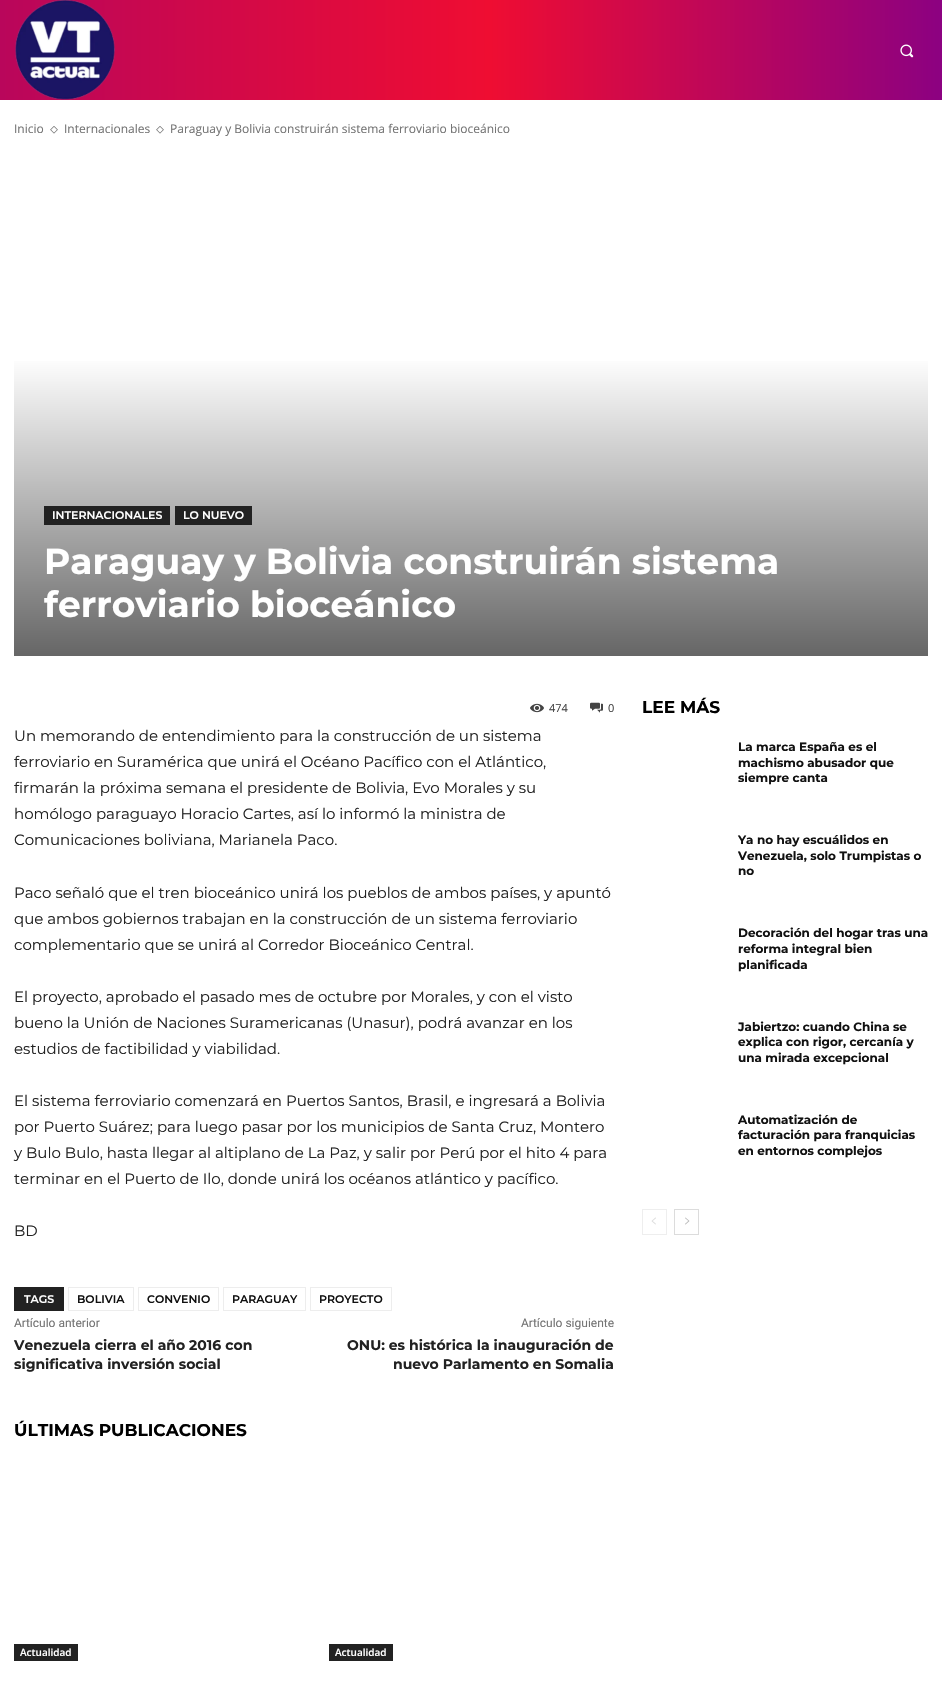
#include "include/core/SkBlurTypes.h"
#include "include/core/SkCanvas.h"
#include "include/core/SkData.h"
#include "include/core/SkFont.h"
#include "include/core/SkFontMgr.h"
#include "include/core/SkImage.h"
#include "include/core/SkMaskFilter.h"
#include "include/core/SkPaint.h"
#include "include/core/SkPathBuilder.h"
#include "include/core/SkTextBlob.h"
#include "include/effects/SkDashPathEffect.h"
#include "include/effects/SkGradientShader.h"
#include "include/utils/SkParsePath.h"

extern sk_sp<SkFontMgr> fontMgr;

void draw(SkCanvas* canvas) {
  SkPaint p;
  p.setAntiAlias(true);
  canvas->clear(SK_ColorWHITE);
  {
    const SkColor colors[] = {SkColorSetRGB(140, 1, 129), SkColorSetRGB(239, 13, 50), SkColorSetRGB(185, 6, 91)};
    const float stops[] = {0, 0.48f, 1};
    const SkPoint ends[] = {{942, 50}, {0, 50}};
    p.setShader(SkGradientShader::MakeLinear(ends, colors, stops, 3, SkTileMode::kClamp));
    p.setAlpha(255);
  }
  canvas->drawRect(SkRect::MakeLTRB(0, 0, 942, 100), p);
  canvas->drawImageRect(SkImages::DeferredFromEncodedData(SkData::MakeFromFileName("images/1.png")), SkRect::MakeLTRB(15, 0, 115, 100), SkSamplingOptions());
  canvas->drawImageRect(SkImages::DeferredFromEncodedData(SkData::MakeFromFileName("images/2.png")), SkRect::MakeLTRB(900, 44, 914, 58), SkSamplingOptions());
  canvas->drawImageRect(SkImages::DeferredFromEncodedData(SkData::MakeFromFileName("images/3.png")), SkRect::MakeLTRB(50, 126, 58, 134), SkSamplingOptions());
  canvas->drawImageRect(SkImages::DeferredFromEncodedData(SkData::MakeFromFileName("images/3.png")), SkRect::MakeLTRB(156, 126, 164, 134), SkSamplingOptions());
  {
    const SkColor colors[] = {SK_ColorWHITE, SK_ColorWHITE, SkColorSetRGB(102, 102, 102)};
    const float stops[] = {0, 0.4f, 1};
    const SkPoint ends[] = {{471, 156}, {471, 656}};
    p.setShader(SkGradientShader::MakeLinear(ends, colors, stops, 3, SkTileMode::kClamp));
    p.setAlpha(255);
  }
  canvas->drawRect(SkRect::MakeLTRB(14, 361, 928, 656), p);
  p.setShader(nullptr);
  p.setColor(SkColorSetRGB(34, 34, 34));
  canvas->drawRect(SkRect::MakeLTRB(44, 506, 170, 525), p);
  canvas->drawRect(SkRect::MakeLTRB(175, 506, 252, 525), p);
  canvas->drawImageRect(SkImages::DeferredFromEncodedData(SkData::MakeFromFileName("images/4.png")), SkRect::MakeLTRB(530, 703, 544, 713), SkSamplingOptions());
  canvas->drawImageRect(SkImages::DeferredFromEncodedData(SkData::MakeFromFileName("images/5.png")), SkRect::MakeLTRB(590, 702, 603, 713), SkSamplingOptions());
  canvas->drawRect(SkRect::MakeLTRB(14, 1287, 64, 1311), p);
  p.setStyle(SkPaint::kStroke_Style);
  p.setStrokeWidth(1);
  p.setColor(SkColorSetRGB(237, 237, 237));
  canvas->drawRect(SkRect::MakeLTRB(68.5f, 1287.5f, 133.5f, 1310.5f), p);
  canvas->drawRect(SkRect::MakeLTRB(138.5f, 1287.5f, 218.5f, 1310.5f), p);
  canvas->drawRect(SkRect::MakeLTRB(223.5f, 1287.5f, 305.5f, 1310.5f), p);
  canvas->drawRect(SkRect::MakeLTRB(310.5f, 1287.5f, 391.5f, 1310.5f), p);
  p.setStyle(SkPaint::kFill_Style);
  p.setColor(SkColorSetRGB(34, 34, 34));
  canvas->drawRect(SkRect::MakeLTRB(14, 1644, 78, 1661), p);
  canvas->drawRect(SkRect::MakeLTRB(329, 1644, 393, 1661), p);
  p.setStyle(SkPaint::kStroke_Style);
  p.setColor(SkColorSetRGB(238, 238, 238));
  canvas->drawRect(SkRect::MakeLTRB(642.5f, 1209.5f, 666.5f, 1234.5f), p);
  canvas->drawImageRect(SkImages::DeferredFromEncodedData(SkData::MakeFromFileName("images/6.png")), SkRect::MakeLTRB(651, 1217, 656, 1225), SkSamplingOptions());
  p.setColor(SkColorSetRGB(220, 220, 220));
  canvas->drawRect(SkRect::MakeLTRB(674.5f, 1209.5f, 698.5f, 1234.5f), p);
  canvas->drawImageRect(SkImages::DeferredFromEncodedData(SkData::MakeFromFileName("images/7.png")), SkRect::MakeLTRB(685, 1217, 690, 1225), SkSamplingOptions());
  SkFont font1(fontMgr->matchFamilyStyle("Open Sans", SkFontStyle::Normal()), 12);
  font1.setSubpixel(true);
  p.setStyle(SkPaint::kFill_Style);
  p.setColor(SkColorSetRGB(116, 116, 116));
  canvas->drawString("Inicio", 14, 133, font1, p);
  canvas->drawString("Internacionales", 64, 133, font1, p);
  canvas->drawString("Paraguay y Bolivia construirán sistema ferroviario bioceánico", 170, 133, font1, p);
  SkFont font2(fontMgr->matchFamilyStyle("Montserrat", SkFontStyle(600, SkFontStyle::kNormal_Width, SkFontStyle::kUpright_Slant)), 11);
  font2.setSubpixel(true);
  p.setColor(SK_ColorWHITE);
  canvas->drawString("INTERNACIONALES", 52, 519, font2, p);
  canvas->drawString("LO NUEVO", 183, 519, font2, p);
  SkFont font3(fontMgr->matchFamilyStyle("Montserrat", SkFontStyle::Bold()), 36);
  font3.setSubpixel(true);
  canvas->drawString("Paraguay y Bolivia construirán sistema", 44, 574, font3, p);
  canvas->drawString("ferroviario bioceánico", 44, 617, font3, p);
  SkFont font4(fontMgr->matchFamilyStyle("Open Sans", SkFontStyle::Normal()), 11);
  font4.setSubpixel(true);
  p.setColor(SkColorSetRGB(68, 68, 68));
  canvas->drawString("474", 549, 712, font4, p);
  canvas->drawString("0", 608, 712, font4, p);
  SkFont font5(fontMgr->matchFamilyStyle("Montserrat", SkFontStyle::Normal()), 15);
  font5.setSubpixel(true);
  p.setColor(SkColorSetRGB(34, 34, 34));
  canvas->drawString("Un memorando de entendimiento para la construcción de un sistema", 14, 741, font5, p);
  canvas->drawString("ferroviario en Suramérica que unirá el Océano Pacífico con el Atlántico,", 14, 767, font5, p);
  canvas->drawString("firmarán la próxima semana el presidente de Bolivia, Evo Morales y su", 14, 793, font5, p);
  canvas->drawString("homólogo paraguayo Horacio Cartes, así lo informó la ministra de", 14, 819, font5, p);
  canvas->drawString("Comunicaciones boliviana, Marianela Paco.", 14, 845, font5, p);
  canvas->drawString("Paco señaló que el tren bioceánico unirá los pueblos de ambos países, y apuntó", 14, 898, font5, p);
  canvas->drawString("que ambos gobiernos trabajan en la construcción de un sistema ferroviario", 14, 924, font5, p);
  canvas->drawString("complementario que se unirá al Corredor Bioceánico Central.", 14, 950, font5, p);
  canvas->drawString("El proyecto, aprobado el pasado mes de octubre por Morales, y con el visto", 14, 1002, font5, p);
  canvas->drawString("bueno la Unión de Naciones Suramericanas (Unasur), podrá avanzar en los", 14, 1028, font5, p);
  canvas->drawString("estudios de factibilidad y viabilidad.", 14, 1054, font5, p);
  canvas->drawString("El sistema ferroviario comenzará en Puertos Santos, Brasil, e ingresará a Bolivia", 14, 1106, font5, p);
  canvas->drawString("por Puerto Suárez; para luego pasar por los municipios de Santa Cruz, Montero", 14, 1132, font5, p);
  canvas->drawString("y Bulo Bulo, hasta llegar al altiplano de La Paz, y salir por Perú por el hito 4 para", 14, 1158, font5, p);
  canvas->drawString("terminar en el Puerto de Ilo, donde unirá los océanos atlántico y pacífico.", 14, 1184, font5, p);
  canvas->drawString("BD", 14, 1236, font5, p);
  p.setColor(SK_ColorWHITE);
  canvas->drawString("TAGS", 24, 1303, font2, p);
  p.setColor(SkColorSetRGB(17, 17, 17));
  canvas->drawString("BOLIVIA", 77, 1303, font2, p);
  canvas->drawString("CONVENIO", 147, 1303, font2, p);
  canvas->drawString("PARAGUAY", 232, 1303, font2, p);
  canvas->drawString("PROYECTO", 319, 1303, font2, p);
  SkFont font6(fontMgr->matchFamilyStyle("Roboto", SkFontStyle::Normal()), 12);
  font6.setSubpixel(true);
  p.setColor(SkColorSetRGB(116, 116, 116));
  canvas->drawString("Artículo anterior", 14, 1327, font6, p);
  SkFont font7(fontMgr->matchFamilyStyle("Montserrat", SkFontStyle::Bold()), 14);
  font7.setSubpixel(true);
  p.setColor(SkColorSetRGB(34, 34, 34));
  canvas->drawString("Venezuela cierra el año 2016 con", 14, 1350, font7, p);
  canvas->drawString("significativa inversión social", 14, 1369, font7, p);
  p.setColor(SkColorSetRGB(116, 116, 116));
  canvas->drawString("Artículo siguiente", 521, 1327, font6, p);
  p.setColor(SkColorSetRGB(34, 34, 34));
  canvas->drawString("ONU: es histórica la inauguración de", 347, 1350, font7, p);
  canvas->drawString("nuevo Parlamento en Somalia", 393, 1369, font7, p);
  SkFont font8(fontMgr->matchFamilyStyle("Montserrat", SkFontStyle::Bold()), 17);
  font8.setSubpixel(true);
  p.setColor(SK_ColorBLACK);
  canvas->drawString("ÚLTIMAS PUBLICACIONES", 14, 1436, font8, p);
  SkFont font9(fontMgr->matchFamilyStyle("Open Sans", SkFontStyle(600, SkFontStyle::kNormal_Width, SkFontStyle::kUpright_Slant)), 10);
  font9.setSubpixel(true);
  p.setColor(SK_ColorWHITE);
  canvas->drawString("Actualidad", 20, 1656, font9, p);
  canvas->drawString("Actualidad", 335, 1656, font9, p);
  p.setColor(SK_ColorBLACK);
  canvas->drawString("LEE MÁS", 642, 713, font8, p);
  SkFont font10(fontMgr->matchFamilyStyle("Montserrat", SkFontStyle::Bold()), 12);
  font10.setSubpixel(true);
  p.setColor(SkColorSetRGB(17, 17, 17));
  canvas->drawString("La marca España es el", 738, 751, font10, p);
  canvas->drawString("machismo abusador que", 738, 767, font10, p);
  canvas->drawString("siempre canta", 738, 782, font10, p);
  canvas->drawString("Ya no hay escuálidos en", 738, 844, font10, p);
  canvas->drawString("Venezuela, solo Trumpistas o", 738, 860, font10, p);
  canvas->drawString("no", 738, 875, font10, p);
  canvas->drawString("Decoración del hogar tras una", 738, 937, font10, p);
  canvas->drawString("reforma integral bien", 738, 953, font10, p);
  canvas->drawString("planificada", 738, 969, font10, p);
  canvas->drawString("Jabiertzo: cuando China se", 738, 1031, font10, p);
  canvas->drawString("explica con rigor, cercanía y", 738, 1046, font10, p);
  canvas->drawString("una mirada excepcional", 738, 1062, font10, p);
  canvas->drawString("Automatización de", 738, 1124, font10, p);
  canvas->drawString("facturación para franquicias", 738, 1139, font10, p);
  canvas->drawString("en entornos complejos", 738, 1155, font10, p);
}
